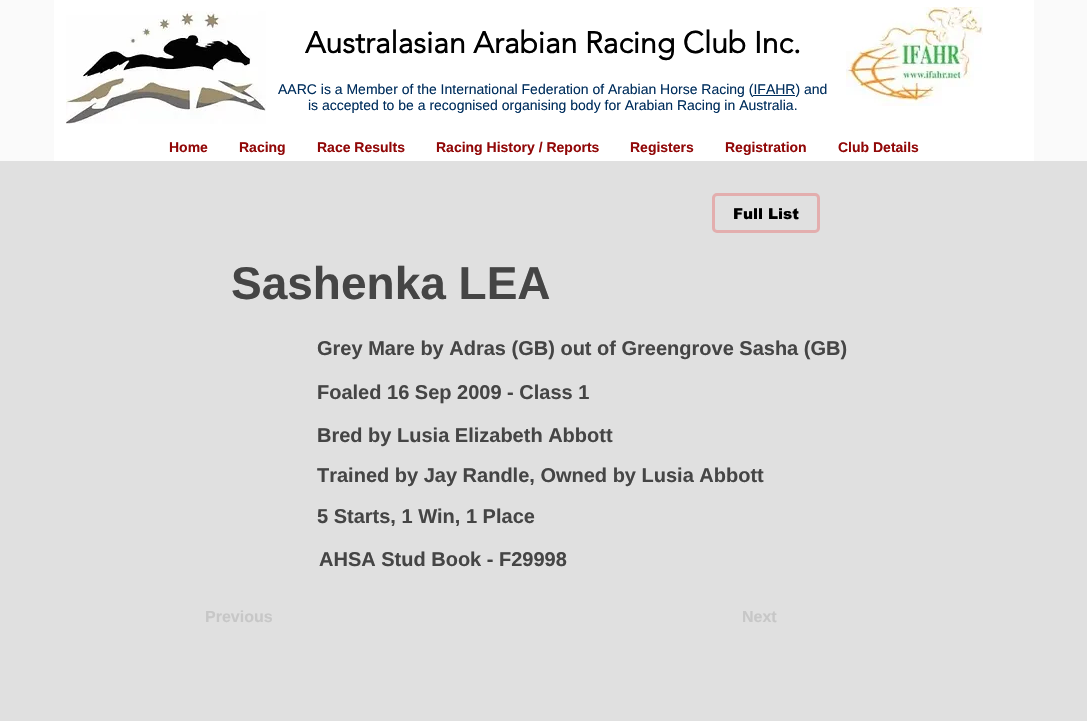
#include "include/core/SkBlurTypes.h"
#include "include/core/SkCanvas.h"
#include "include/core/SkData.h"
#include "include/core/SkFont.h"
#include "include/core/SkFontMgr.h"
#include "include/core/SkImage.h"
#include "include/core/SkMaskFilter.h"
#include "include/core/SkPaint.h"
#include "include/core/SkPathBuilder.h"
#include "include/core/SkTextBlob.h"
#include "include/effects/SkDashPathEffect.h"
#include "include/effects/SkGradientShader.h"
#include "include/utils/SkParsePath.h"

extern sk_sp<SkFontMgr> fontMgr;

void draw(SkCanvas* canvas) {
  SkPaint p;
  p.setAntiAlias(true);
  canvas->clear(SkColorSetRGB(224, 224, 224));
  p.setColor(SkColorSetRGB(250, 250, 250));
  canvas->drawRect(SkRect::MakeLTRB(0, 0, 1087, 161), p);
  p.setColor(SK_ColorWHITE);
  canvas->drawRect(SkRect::MakeLTRB(54, 0, 1034, 161), p);
  canvas->drawImageRect(SkImages::DeferredFromEncodedData(SkData::MakeFromFileName("images/1.png")), SkRect::MakeLTRB(66, 11, 266, 124), SkSamplingOptions());
  canvas->drawImageRect(SkImages::DeferredFromEncodedData(SkData::MakeFromFileName("images/2.png")), SkRect::MakeLTRB(846, 7, 983, 106), SkSamplingOptions());
  p.setColor(SkColorSetRGB(0, 46, 93));
  canvas->drawRect(SkRect::MakeLTRB(753, 95, 795, 96), p);
  p.setStyle(SkPaint::kStroke_Style);
  p.setStrokeWidth(3);
  p.setColor(SkColorSetRGB(227, 174, 174));
  canvas->drawRoundRect(SkRect::MakeLTRB(713.5f, 194.5f, 818.5f, 231.5f), 3.5f, 3.5f, p);
  SkFont font1(fontMgr->matchFamilyStyle("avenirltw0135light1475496", SkFontStyle::Bold()), 30);
  font1.setSubpixel(true);
  p.setStyle(SkPaint::kFill_Style);
  p.setColor(SK_ColorBLACK);
  canvas->drawString("Australasian Arabian Racing Club Inc.", 305, 53, font1, p);
  SkFont font2(fontMgr->matchFamilyStyle("Liberation Sans", SkFontStyle::Normal()), 14);
  font2.setSubpixel(true);
  p.setColor(SkColorSetRGB(0, 46, 93));
  canvas->drawString("AARC is a Member of the International Federation of Arabian Horse Racing (IFAHR) and", 278, 94, font2, p);
  canvas->drawString("is accepted to be a recognised organising body for Arabian Racing in Australia.", 308, 110, font2, p);
  SkFont font3(fontMgr->matchFamilyStyle("Liberation Sans", SkFontStyle::Bold()), 14);
  font3.setSubpixel(true);
  p.setColor(SkColorSetRGB(145, 8, 8));
  canvas->drawString("Home", 169, 152, font3, p);
  canvas->drawString("Racing", 239, 152, font3, p);
  canvas->drawString("Race Results", 317, 152, font3, p);
  canvas->drawString("Racing History / Reports", 436, 152, font3, p);
  canvas->drawString("Registers", 630, 152, font3, p);
  canvas->drawString("Registration", 725, 152, font3, p);
  canvas->drawString("Club Details", 838, 152, font3, p);
  SkFont font4(fontMgr->matchFamilyStyle("arial", SkFontStyle(900, SkFontStyle::kNormal_Width, SkFontStyle::kUpright_Slant)), 15);
  font4.setSubpixel(true);
  p.setColor(SK_ColorBLACK);
  canvas->drawString("Full List", 733, 219, font4, p);
  SkFont font5(fontMgr->matchFamilyStyle("Liberation Sans", SkFontStyle::Bold()), 46);
  font5.setSubpixel(true);
  p.setColor(SkColorSetRGB(69, 69, 69));
  canvas->drawString("Sashenka LEA", 231, 299, font5, p);
  SkFont font6(fontMgr->matchFamilyStyle("Liberation Sans", SkFontStyle::Bold()), 20);
  font6.setSubpixel(true);
  canvas->drawString("Grey Mare by Adras (GB) out of Greengrove Sasha (GB)", 317, 355, font6, p);
  canvas->drawString("Foaled 16 Sep 2009 - Class 1", 317, 399, font6, p);
  canvas->drawString("Bred by Lusia Elizabeth Abbott", 317, 442, font6, p);
  canvas->drawString("Trained by Jay Randle, Owned by Lusia Abbott", 317, 482, font6, p);
  canvas->drawString("5 Starts, 1 Win, 1 Place", 317, 523, font6, p);
  canvas->drawString("AHSA Stud Book - F29998", 319, 566, font6, p);
  SkFont font7(fontMgr->matchFamilyStyle("Liberation Sans", SkFontStyle::Bold()), 16);
  font7.setSubpixel(true);
  p.setColor(SkColorSetRGB(199, 199, 199));
  canvas->drawString("Previous", 205, 622, font7, p);
  canvas->drawString("Next", 742, 622, font7, p);
}
